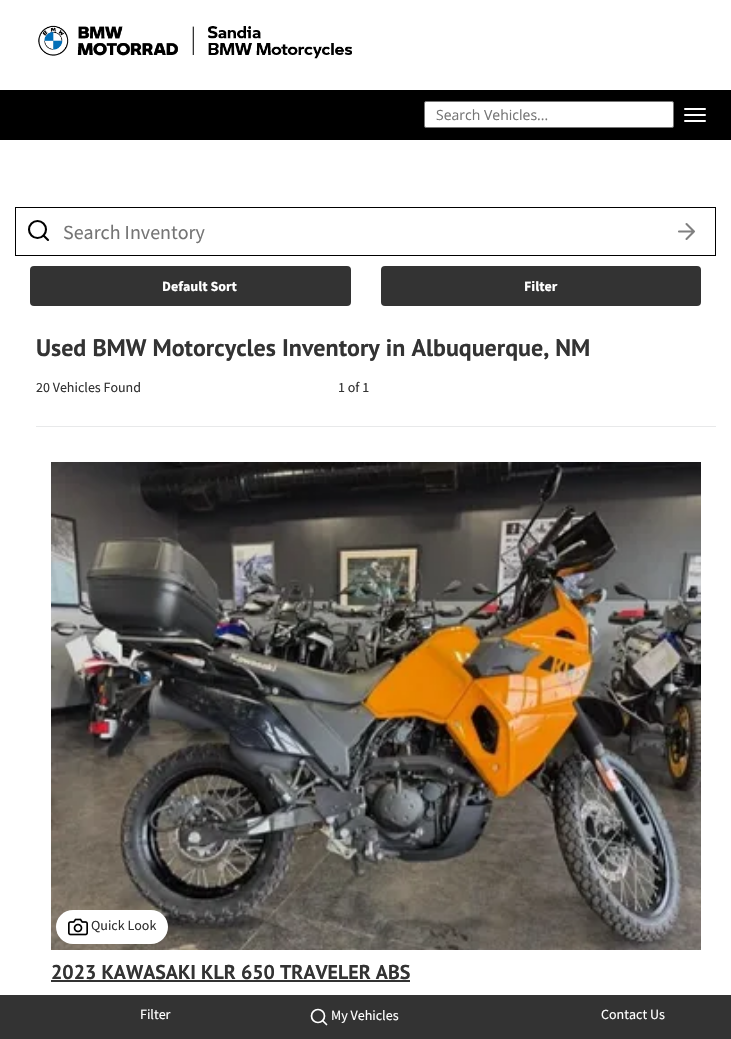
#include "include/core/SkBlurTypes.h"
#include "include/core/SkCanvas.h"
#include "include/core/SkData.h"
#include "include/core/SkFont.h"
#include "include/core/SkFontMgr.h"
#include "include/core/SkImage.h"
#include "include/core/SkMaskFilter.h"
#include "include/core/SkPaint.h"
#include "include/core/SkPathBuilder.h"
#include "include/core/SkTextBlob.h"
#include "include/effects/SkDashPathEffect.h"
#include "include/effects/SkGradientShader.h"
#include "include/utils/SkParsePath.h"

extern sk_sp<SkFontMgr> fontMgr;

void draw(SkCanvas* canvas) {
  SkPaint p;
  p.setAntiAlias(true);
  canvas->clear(SK_ColorWHITE);
  canvas->drawImageRect(SkImages::DeferredFromEncodedData(SkData::MakeFromFileName("images/1.png")), SkRect::MakeLTRB(38, 25, 194, 56), SkSamplingOptions());
  canvas->drawImageRect(SkImages::DeferredFromEncodedData(SkData::MakeFromFileName("images/2.png")), SkRect::MakeLTRB(208, 26, 352, 59), SkSamplingOptions());
  p.setColor(SK_ColorBLACK);
  canvas->drawRect(SkRect::MakeLTRB(0, 90, 731, 140), p);
  p.setColor(SK_ColorWHITE);
  canvas->drawRoundRect(SkRect::MakeLTRB(424.5f, 101.5f, 673.5f, 127.5f), 1.5f, 1.5f, p);
  p.setStyle(SkPaint::kStroke_Style);
  p.setStrokeWidth(1);
  p.setColor(SkColorSetRGB(118, 118, 118));
  canvas->drawRoundRect(SkRect::MakeLTRB(424.5f, 101.5f, 673.5f, 127.5f), 1.5f, 1.5f, p);
  p.setStyle(SkPaint::kFill_Style);
  p.setColor(SK_ColorWHITE);
  canvas->drawRoundRect(SkRect::MakeLTRB(684, 108, 706, 110), 1, 1, p);
  canvas->drawRoundRect(SkRect::MakeLTRB(684, 114, 706, 116), 1, 1, p);
  canvas->drawRoundRect(SkRect::MakeLTRB(684, 120, 706, 122), 1, 1, p);
  p.setStyle(SkPaint::kStroke_Style);
  p.setColor(SK_ColorBLACK);
  canvas->drawRect(SkRect::MakeLTRB(15.5f, 207.5f, 715.5f, 255.5f), p);
  p.setStrokeWidth(2.1f);
  canvas->drawCircle(37.5f, 229.5f, 8.5f, p);
  p.setStrokeCap(SkPaint::kRound_Cap);
  p.setStrokeJoin(SkPaint::kRound_Join);
  canvas->drawPath(SkPathBuilder().moveTo(48, 240).lineTo(43.5f, 235.5f).detach(), p);
  p.setColor(SkColorSetRGB(128, 128, 128));
  canvas->drawPath(SkPathBuilder().moveTo(679, 231.5f).lineTo(694, 231.5f).moveTo(686.5f, 224).lineTo(694, 231.5f).lineTo(686.5f, 239).detach(), p);
  p.setStyle(SkPaint::kFill_Style);
  p.setColor(SkColorSetRGB(51, 51, 51));
  canvas->drawRoundRect(SkRect::MakeLTRB(30, 266, 351, 306), 4, 4, p);
  canvas->drawRoundRect(SkRect::MakeLTRB(381, 266, 701, 306), 4, 4, p);
  p.setColor(SkColorSetRGB(232, 233, 234));
  canvas->drawRect(SkRect::MakeLTRB(36, 426, 716, 427), p);
  canvas->drawImageRect(SkImages::DeferredFromEncodedData(SkData::MakeFromFileName("images/3.png")), SkRect::MakeLTRB(51, 462, 701, 950), SkSamplingOptions());
  p.setColor(SK_ColorWHITE);
  canvas->drawRoundRect(SkRect::MakeLTRB(56, 910, 168, 944), 17, 17, p);
  canvas->drawImageRect(SkImages::DeferredFromEncodedData(SkData::MakeFromFileName("images/4.png")), SkRect::MakeLTRB(68, 918, 88, 936), SkSamplingOptions());
  p.setColor(SkColorSetRGB(51, 51, 51));
  canvas->drawRect(SkRect::MakeLTRB(51, 980, 410, 982), p);
  canvas->drawRect(SkRect::MakeLTRB(0, 995, 731, 1039), p);
  p.setStyle(SkPaint::kStroke_Style);
  p.setStrokeWidth(1.7f);
  p.setStrokeCap(SkPaint::kButt_Cap);
  p.setStrokeJoin(SkPaint::kMiter_Join);
  p.setColor(SK_ColorWHITE);
  canvas->drawCircle(318, 1016, 6.5f, p);
  p.setStrokeCap(SkPaint::kRound_Cap);
  p.setStrokeJoin(SkPaint::kRound_Join);
  canvas->drawPath(SkPathBuilder().moveTo(326.5f, 1024.5f).lineTo(323, 1021).detach(), p);
  SkFont font1(fontMgr->matchFamilyStyle("Open Sans", SkFontStyle::Normal()), 14);
  font1.setSubpixel(true);
  p.setStyle(SkPaint::kFill_Style);
  p.setColor(SkColorSetRGB(117, 117, 117));
  canvas->drawString("Search Vehicles...", 436, 120, font1, p);
  SkFont font2(fontMgr->matchFamilyStyle("Source Sans Pro", SkFontStyle::Normal()), 20);
  font2.setSubpixel(true);
  canvas->drawString("Search Inventory", 63, 239, font2, p);
  SkFont font3(fontMgr->matchFamilyStyle("Source Sans Pro", SkFontStyle::Bold()), 14);
  font3.setSubpixel(true);
  p.setColor(SK_ColorWHITE);
  canvas->drawString("Default Sort", 162, 291, font3, p);
  canvas->drawString("Filter", 524, 291, font3, p);
  SkFont font4(fontMgr->matchFamilyStyle("PT Sans", SkFontStyle::Bold()), 24);
  font4.setSubpixel(true);
  p.setColor(SkColorSetRGB(51, 51, 51));
  canvas->drawString("Used BMW Motorcycles Inventory in Albuquerque, NM", 36, 356, font4, p);
  SkFont font5(fontMgr->matchFamilyStyle("Source Sans Pro", SkFontStyle::Normal()), 14);
  font5.setSubpixel(true);
  canvas->drawString("20 Vehicles Found", 36, 392, font5, p);
  canvas->drawString("1 of 1", 338, 392, font5, p);
  canvas->drawString("Quick Look", 91, 930, font5, p);
  SkFont font6(fontMgr->matchFamilyStyle("PT Sans", SkFontStyle::Bold()), 20);
  font6.setSubpixel(true);
  canvas->drawString("2023 KAWASAKI KLR 650 TRAVELER ABS", 51, 979, font6, p);
  p.setColor(SK_ColorWHITE);
  canvas->drawString("Filter", 140, 1019, font5, p);
  canvas->drawString("My Vehicles", 331, 1020, font5, p);
  canvas->drawString("Contact Us", 601, 1019, font5, p);
}
